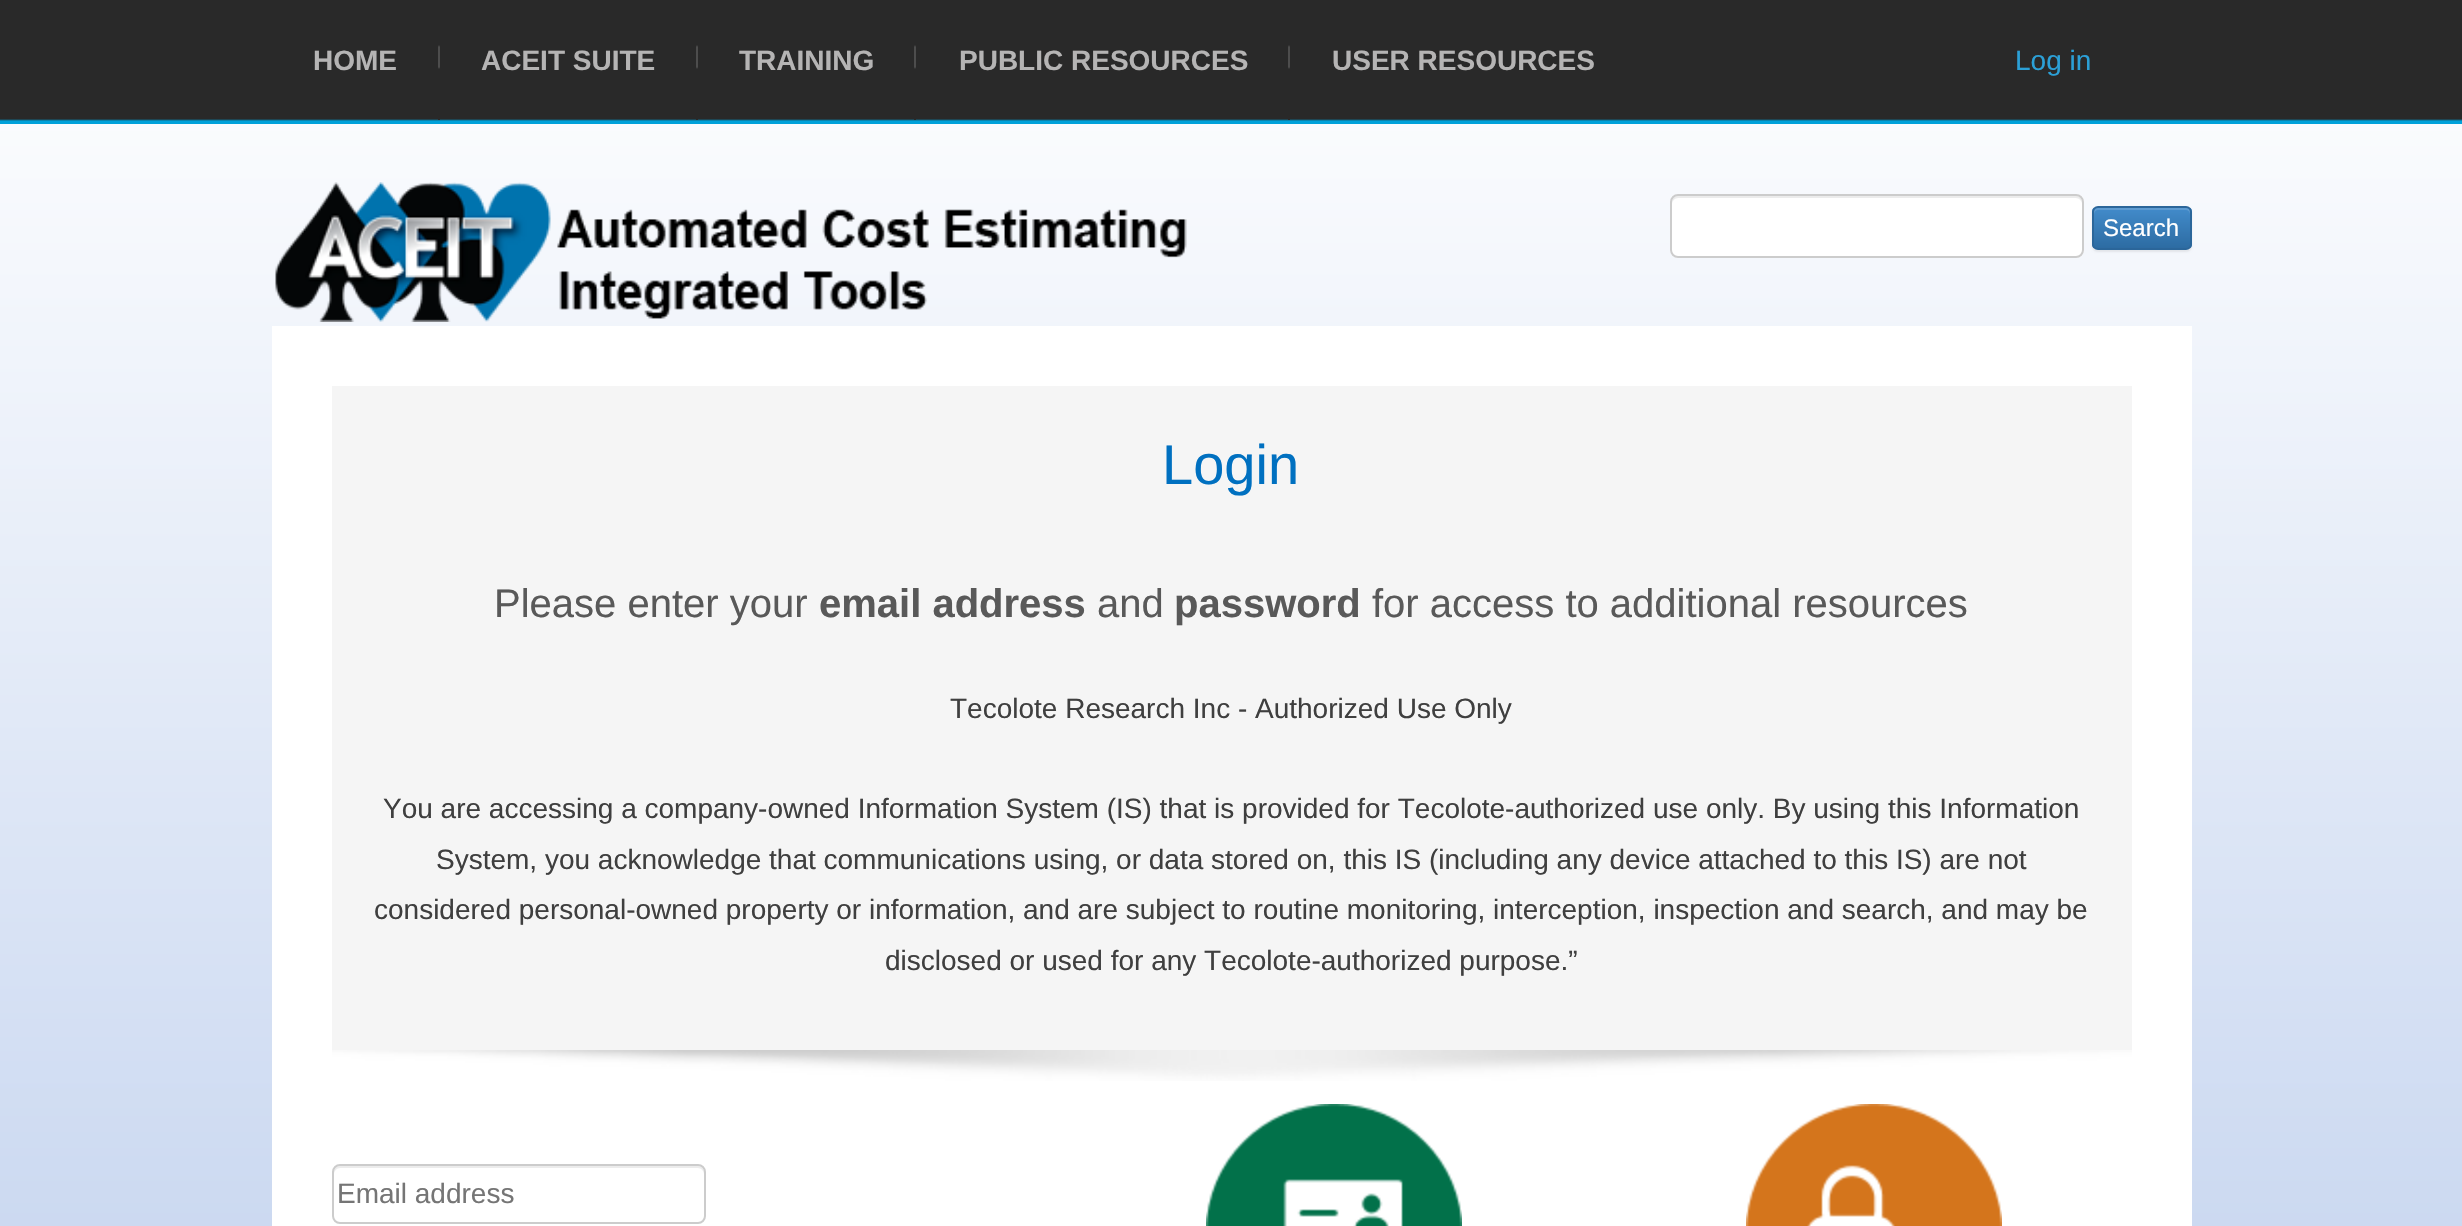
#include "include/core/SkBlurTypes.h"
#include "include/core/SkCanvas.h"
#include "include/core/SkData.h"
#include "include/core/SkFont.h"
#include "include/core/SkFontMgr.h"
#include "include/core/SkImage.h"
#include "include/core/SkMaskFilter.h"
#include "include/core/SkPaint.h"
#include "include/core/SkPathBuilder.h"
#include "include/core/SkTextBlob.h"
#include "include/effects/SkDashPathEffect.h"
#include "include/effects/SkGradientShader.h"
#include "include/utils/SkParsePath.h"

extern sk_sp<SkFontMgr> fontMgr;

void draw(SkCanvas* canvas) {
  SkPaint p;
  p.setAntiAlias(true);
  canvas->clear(SK_ColorWHITE);
  {
    const SkColor colors[] = {SK_ColorWHITE, SkColorSetRGB(160, 185, 229)};
    const float stops[] = {0, 1};
    const SkPoint ends[] = {{1231, 0}, {1231, 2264}};
    p.setShader(SkGradientShader::MakeLinear(ends, colors, stops, 2, SkTileMode::kClamp));
    p.setAlpha(255);
  }
  canvas->drawRect(SkRect::MakeLTRB(0, 124, 2462, 1226), p);
  canvas->drawImageRect(SkImages::DeferredFromEncodedData(SkData::MakeFromFileName("images/1.png")), SkRect::MakeLTRB(0, 0, 2462, 124), SkSamplingOptions());
  canvas->drawImageRect(SkImages::DeferredFromEncodedData(SkData::MakeFromFileName("images/2.png")), SkRect::MakeLTRB(438, 45, 440, 120), SkSamplingOptions());
  canvas->drawImageRect(SkImages::DeferredFromEncodedData(SkData::MakeFromFileName("images/2.png")), SkRect::MakeLTRB(696, 45, 698, 120), SkSamplingOptions());
  canvas->drawImageRect(SkImages::DeferredFromEncodedData(SkData::MakeFromFileName("images/2.png")), SkRect::MakeLTRB(914, 45, 916, 120), SkSamplingOptions());
  canvas->drawImageRect(SkImages::DeferredFromEncodedData(SkData::MakeFromFileName("images/2.png")), SkRect::MakeLTRB(1288, 45, 1290, 120), SkSamplingOptions());
  canvas->drawImageRect(SkImages::DeferredFromEncodedData(SkData::MakeFromFileName("images/3.png")), SkRect::MakeLTRB(275, 182, 1187, 322), SkSamplingOptions());
  p.setShader(nullptr);
  p.setColor(SK_ColorWHITE);
  canvas->drawRoundRect(SkRect::MakeLTRB(1670, 194, 2084, 258), 8, 8, p);
  p.setColor(SkColorSetRGB(236, 236, 236));
  canvas->drawPath(SkPathBuilder().moveTo(1678, 198).lineTo(2076, 198).cubicTo(2079, 198, 2082, 201, 2082, 204).cubicTo(2082, 200, 2081, 196, 2076, 196).lineTo(1678, 196).cubicTo(1673, 196, 1672, 200, 1672, 204).cubicTo(1672, 201, 1675, 198, 1678, 198).close().detach(), p);
  p.setStyle(SkPaint::kStroke_Style);
  p.setStrokeWidth(2);
  p.setColor(SkColorSetRGB(204, 204, 204));
  canvas->drawRoundRect(SkRect::MakeLTRB(1671, 195, 2083, 257), 7, 7, p);
  p.setStyle(SkPaint::kFill_Style);
  p.setColor(SkColorSetARGB(18, 0, 0, 0));
  p.setMaskFilter(SkMaskFilter::MakeBlur(kNormal_SkBlurStyle, 1));
  canvas->drawRoundRect(SkRect::MakeLTRB(2092, 208, 2192, 252), 6, 6, p);
  p.setMaskFilter(nullptr);
  canvas->save();
  canvas->clipPath(SkPathBuilder().moveTo(2098, 206).lineTo(2186, 206).cubicTo(2189.5f, 206, 2192, 208.5f, 2192, 212).lineTo(2192, 244).cubicTo(2192, 247.5f, 2189.5f, 250, 2186, 250).lineTo(2098, 250).cubicTo(2094.5f, 250, 2092, 247.5f, 2092, 244).lineTo(2092, 212).cubicTo(2092, 208.5f, 2094.5f, 206, 2098, 206).close().detach(), true);
  {
    const SkColor colors[] = {SkColorSetRGB(66, 139, 202), SkColorSetRGB(45, 108, 162)};
    const float stops[] = {0, 1};
    const SkPoint ends[] = {{2142, 208}, {2142, 248}};
    p.setShader(SkGradientShader::MakeLinear(ends, colors, stops, 2, SkTileMode::kClamp));
    p.setAlpha(255);
  }
  canvas->drawRect(SkRect::MakeLTRB(2092, 208, 2192, 248), p);
  canvas->restore();
  p.setShader(nullptr);
  p.setColor(SkColorSetARGB(38, 255, 255, 255));
  canvas->drawPath(SkPathBuilder().moveTo(2098, 210).lineTo(2186, 210).cubicTo(2188, 210, 2190, 212, 2190, 214).lineTo(2190, 212).cubicTo(2190, 210, 2188, 208, 2186, 208).lineTo(2098, 208).cubicTo(2096, 208, 2094, 210, 2094, 212).lineTo(2094, 214).cubicTo(2094, 212, 2096, 210, 2098, 210).close().detach(), p);
  p.setStyle(SkPaint::kStroke_Style);
  p.setColor(SkColorSetRGB(43, 102, 154));
  canvas->drawRoundRect(SkRect::MakeLTRB(2093, 207, 2191, 249), 5, 5, p);
  p.setStyle(SkPaint::kFill_Style);
  p.setColor(SK_ColorWHITE);
  canvas->drawRect(SkRect::MakeLTRB(272, 326, 2192, 1226), p);
  canvas->drawImageRect(SkImages::DeferredFromEncodedData(SkData::MakeFromFileName("images/4.png")), SkRect::MakeLTRB(332, 1050, 2132, 1081), SkSamplingOptions());
  p.setColor(SkColorSetRGB(245, 245, 245));
  canvas->drawRect(SkRect::MakeLTRB(332, 386, 2132, 1050), p);
  p.setColor(SkColorSetRGB(236, 236, 236));
  canvas->drawPath(SkPathBuilder().moveTo(340, 1168).lineTo(698, 1168).cubicTo(701, 1168, 704, 1171, 704, 1174).lineTo(704, 1172).cubicTo(704, 1169, 701, 1166, 698, 1166).lineTo(340, 1166).cubicTo(337, 1166, 334, 1169, 334, 1172).lineTo(334, 1174).cubicTo(334, 1171, 337, 1168, 340, 1168).close().detach(), p);
  p.setStyle(SkPaint::kStroke_Style);
  p.setColor(SkColorSetRGB(204, 204, 204));
  canvas->drawRoundRect(SkRect::MakeLTRB(333, 1165, 705, 1223), 7, 7, p);
  canvas->drawImageRect(SkImages::DeferredFromEncodedData(SkData::MakeFromFileName("images/5.png")), SkRect::MakeLTRB(1206, 1104, 1462, 1226), SkSamplingOptions());
  canvas->drawImageRect(SkImages::DeferredFromEncodedData(SkData::MakeFromFileName("images/6.png")), SkRect::MakeLTRB(1746, 1104, 2002, 1226), SkSamplingOptions());
  SkFont font1(fontMgr->matchFamilyStyle("Liberation Sans", SkFontStyle::Bold()), 28);
  font1.setSubpixel(true);
  p.setStyle(SkPaint::kFill_Style);
  p.setColor(SkColorSetRGB(181, 180, 180));
  canvas->drawString("HOME", 313, 70, font1, p);
  canvas->drawString("ACEIT SUITE", 481, 70, font1, p);
  canvas->drawString("TRAINING", 739, 70, font1, p);
  canvas->drawString("PUBLIC RESOURCES", 959, 70, font1, p);
  canvas->drawString("USER RESOURCES", 1332, 70, font1, p);
  SkFont font2(fontMgr->matchFamilyStyle("Liberation Sans", SkFontStyle::Normal()), 28);
  font2.setSubpixel(true);
  p.setColor(SkColorSetRGB(43, 160, 215));
  canvas->drawString("Log in", 2015, 70, font2, p);
  SkFont font3(fontMgr->matchFamilyStyle("Liberation Sans", SkFontStyle::Normal()), 24);
  font3.setSubpixel(true);
  p.setColor(SK_ColorWHITE);
  canvas->drawString("Search", 2103, 236, font3, p);
  SkFont font4(fontMgr->matchFamilyStyle("Liberation Sans", SkFontStyle::Normal()), 56);
  font4.setSubpixel(true);
  p.setColor(SkColorSetRGB(0, 112, 192));
  canvas->drawString("Login", 1162, 484, font4, p);
  SkFont font5(fontMgr->matchFamilyStyle("Liberation Sans", SkFontStyle::Normal()), 40);
  font5.setSubpixel(true);
  p.setColor(SkColorSetRGB(89, 89, 89));
  canvas->drawString("Please enter your", 494, 617, font5, p);
  SkFont font6(fontMgr->matchFamilyStyle("Liberation Sans", SkFontStyle::Bold()), 40);
  font6.setSubpixel(true);
  canvas->drawString("email address", 819, 617, font6, p);
  canvas->drawString("and", 1097, 617, font5, p);
  canvas->drawString("password", 1174, 617, font6, p);
  canvas->drawString("for access to additional resources", 1372, 617, font5, p);
  p.setColor(SkColorSetRGB(63, 63, 63));
  canvas->drawString("Tecolote Research Inc - Authorized Use Only", 950, 718, font2, p);
  canvas->drawString("You are accessing a company-owned Information System (IS) that is provided for Tecolote-authorized use only. By using this Information", 383, 818, font2, p);
  canvas->drawString("System, you acknowledge that communications using, or data stored on, this IS (including any device attached to this IS) are not", 436, 869, font2, p);
  canvas->drawString("considered personal-owned property or information, and are subject to routine monitoring, interception, inspection and search, and may be", 374, 919, font2, p);
  canvas->drawString("disclosed or used for any Tecolote-authorized purpose.”", 885, 970, font2, p);
  p.setColor(SkColorSetRGB(117, 117, 117));
  canvas->drawString("Email address", 337, 1203, font2, p);
}
